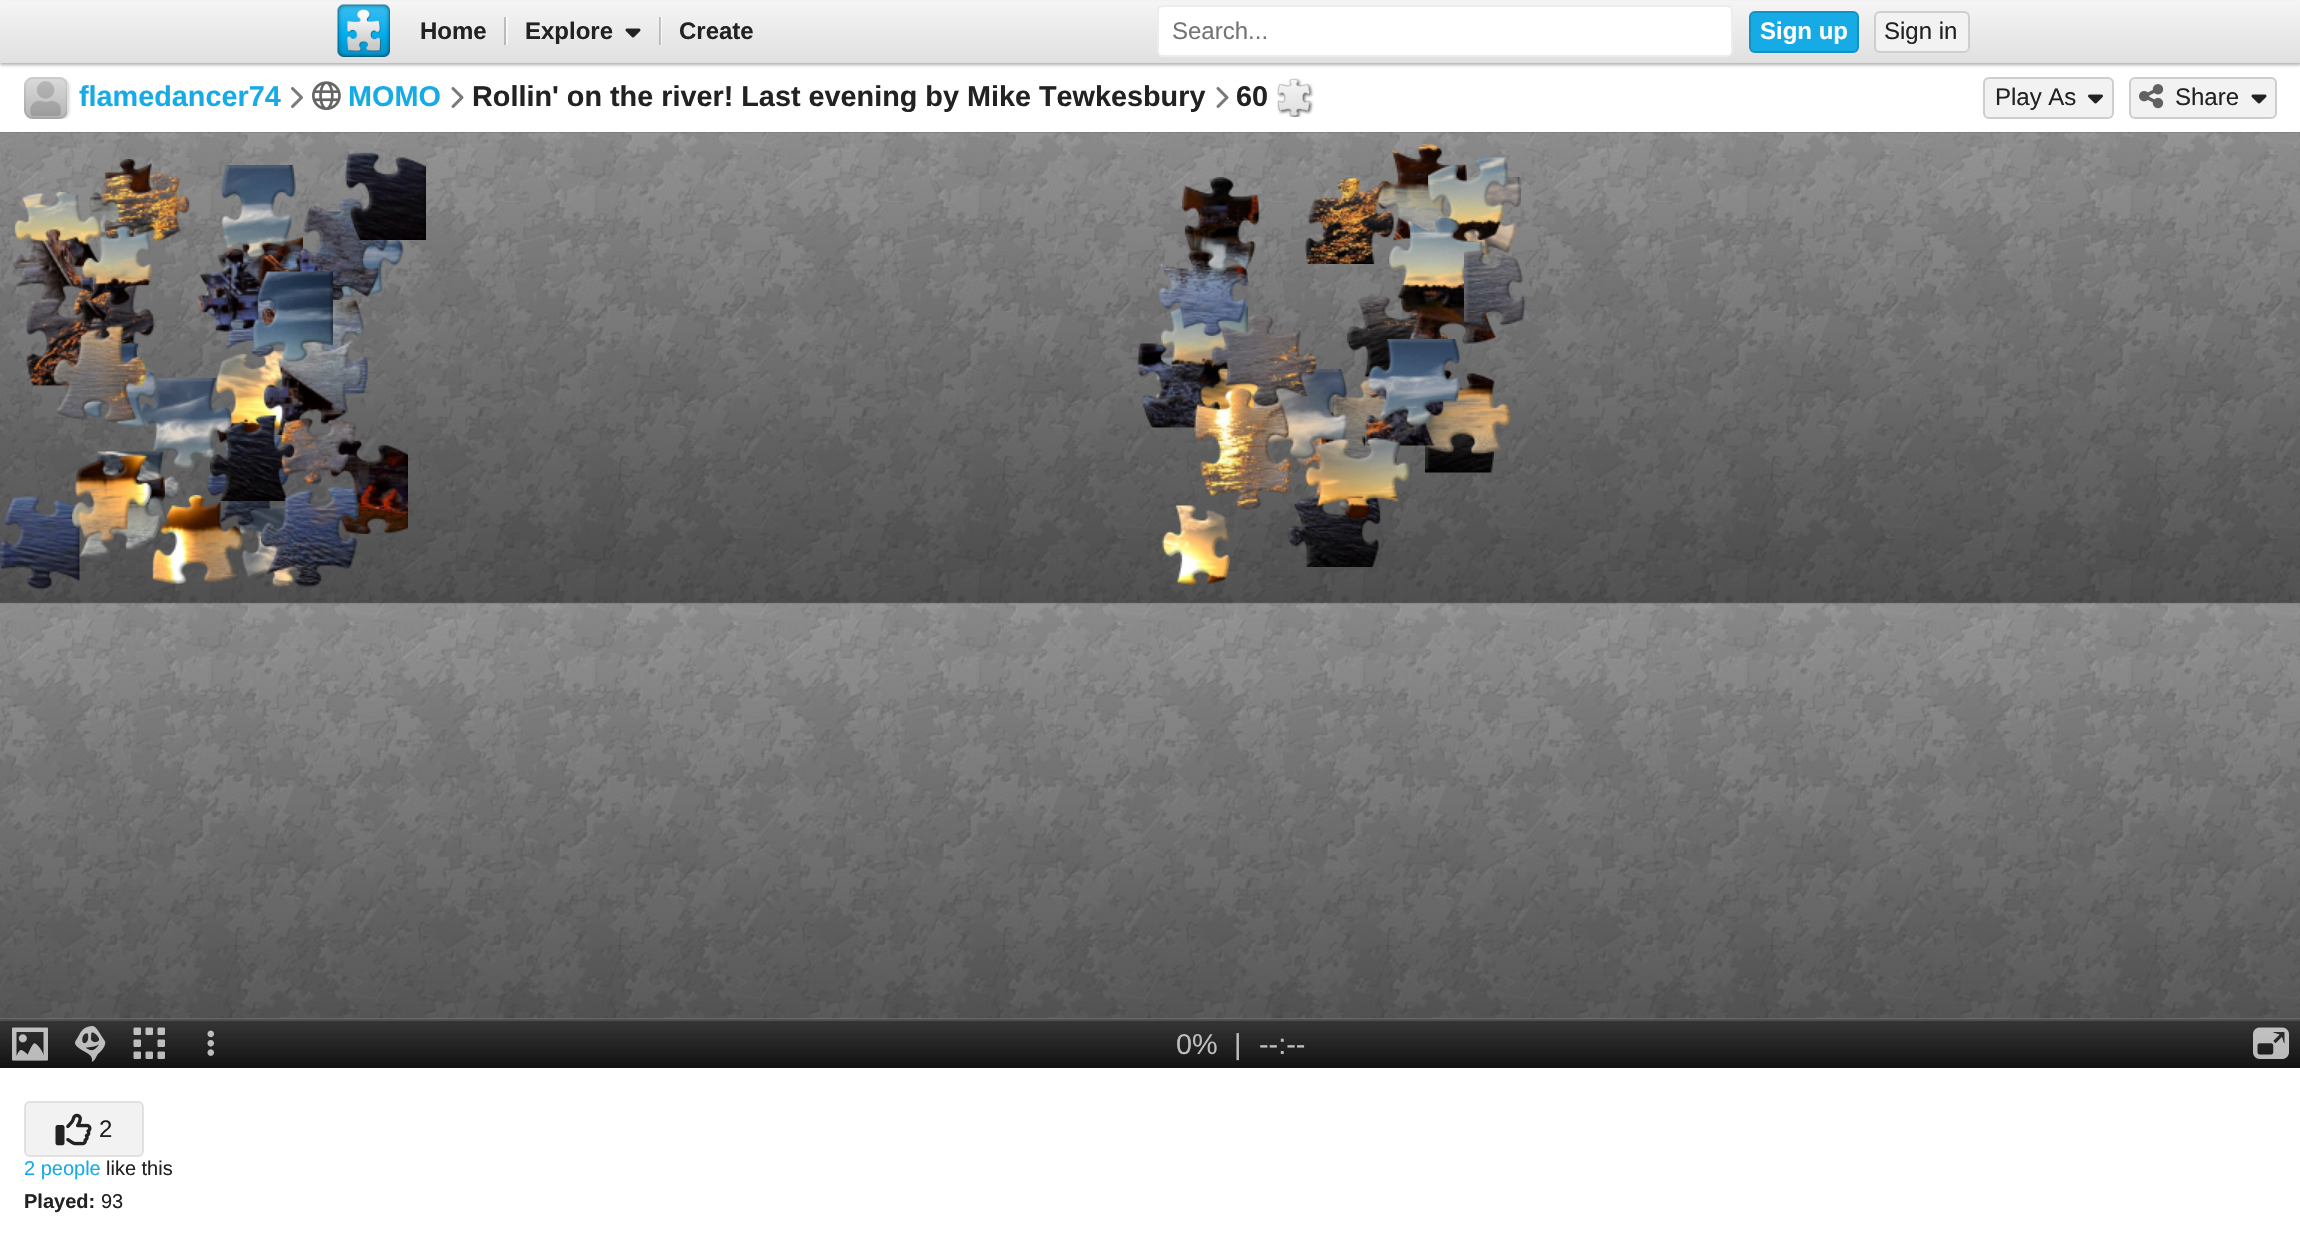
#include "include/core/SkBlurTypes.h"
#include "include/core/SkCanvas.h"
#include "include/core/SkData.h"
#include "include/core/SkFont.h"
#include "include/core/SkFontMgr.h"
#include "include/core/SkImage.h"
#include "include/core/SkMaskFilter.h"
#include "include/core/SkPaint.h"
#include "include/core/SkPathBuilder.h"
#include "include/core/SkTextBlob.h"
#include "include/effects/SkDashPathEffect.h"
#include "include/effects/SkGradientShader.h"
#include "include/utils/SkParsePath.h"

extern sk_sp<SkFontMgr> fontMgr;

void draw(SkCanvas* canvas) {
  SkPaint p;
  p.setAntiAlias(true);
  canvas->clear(SK_ColorWHITE);
  p.setColor(SkColorSetARGB(77, 0, 0, 0));
  p.setMaskFilter(SkMaskFilter::MakeBlur(kNormal_SkBlurStyle, 1.5f));
  canvas->drawRect(SkRect::MakeLTRB(0, 2, 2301, 65), p);
  p.setMaskFilter(nullptr);
  {
    const SkColor colors[] = {SkColorSetRGB(245, 245, 245), SkColorSetRGB(224, 224, 224)};
    const float stops[] = {0, 1};
    const SkPoint ends[] = {{1151, 0}, {1151, 63}};
    p.setShader(SkGradientShader::MakeLinear(ends, colors, stops, 2, SkTileMode::kClamp));
    p.setAlpha(255);
  }
  canvas->drawRect(SkRect::MakeLTRB(0, 1, 2300, 63), p);
  {
    const SkColor colors[] = {SkColorSetRGB(196, 196, 196), SkColorSetRGB(179, 179, 179)};
    const float stops[] = {0, 1};
    const SkPoint ends[] = {{1151, 0}, {1151, 63}};
    p.setShader(SkGradientShader::MakeLinear(ends, colors, stops, 2, SkTileMode::kClamp));
    p.setAlpha(255);
  }
  canvas->drawRect(SkRect::MakeLTRB(659, 17, 660, 45), p);
  {
    const SkColor colors[] = {SkColorSetRGB(251, 251, 251), SkColorSetRGB(243, 243, 243)};
    const float stops[] = {0, 1};
    const SkPoint ends[] = {{1151, 0}, {1151, 63}};
    p.setShader(SkGradientShader::MakeLinear(ends, colors, stops, 2, SkTileMode::kClamp));
    p.setAlpha(255);
  }
  canvas->drawRect(SkRect::MakeLTRB(661, 17, 662, 45), p);
  {
    const SkColor colors[] = {SkColorSetRGB(201, 201, 201), SkColorSetRGB(194, 194, 194)};
    const float stops[] = {0, 1};
    const SkPoint ends[] = {{1151, 0}, {1151, 63}};
    p.setShader(SkGradientShader::MakeLinear(ends, colors, stops, 2, SkTileMode::kClamp));
    p.setAlpha(255);
  }
  canvas->drawRect(SkRect::MakeLTRB(660, 17, 661, 45), p);
  {
    const SkColor colors[] = {SkColorSetRGB(196, 196, 196), SkColorSetRGB(179, 179, 179)};
    const float stops[] = {0, 1};
    const SkPoint ends[] = {{1151, 0}, {1151, 63}};
    p.setShader(SkGradientShader::MakeLinear(ends, colors, stops, 2, SkTileMode::kClamp));
    p.setAlpha(255);
  }
  canvas->drawRect(SkRect::MakeLTRB(504, 17, 506, 45), p);
  {
    const SkColor colors[] = {SkColorSetRGB(251, 251, 251), SkColorSetRGB(243, 243, 243)};
    const float stops[] = {0, 1};
    const SkPoint ends[] = {{1151, 0}, {1151, 63}};
    p.setShader(SkGradientShader::MakeLinear(ends, colors, stops, 2, SkTileMode::kClamp));
    p.setAlpha(255);
  }
  canvas->drawRect(SkRect::MakeLTRB(506, 17, 508, 45), p);
  canvas->drawImageRect(SkImages::DeferredFromEncodedData(SkData::MakeFromFileName("images/1.png")), SkRect::MakeLTRB(337, 4, 390, 57), SkSamplingOptions());
  canvas->drawImageRect(SkImages::DeferredFromEncodedData(SkData::MakeFromFileName("images/2.png")), SkRect::MakeLTRB(625, 28, 641, 38), SkSamplingOptions());
  p.setShader(nullptr);
  p.setColor(SK_ColorWHITE);
  canvas->drawRoundRect(SkRect::MakeLTRB(1157, 5, 1733, 57), 6, 6, p);
  p.setStyle(SkPaint::kStroke_Style);
  p.setStrokeWidth(2);
  p.setColor(SkColorSetARGB(18, 0, 0, 0));
  canvas->drawRoundRect(SkRect::MakeLTRB(1158, 6, 1732, 56), 5, 5, p);
  p.setStyle(SkPaint::kFill_Style);
  p.setColor(SkColorSetRGB(23, 171, 230));
  canvas->drawRoundRect(SkRect::MakeLTRB(1749, 11, 1859, 53), 6, 6, p);
  p.setStyle(SkPaint::kStroke_Style);
  p.setColor(SkColorSetARGB(38, 0, 0, 0));
  canvas->drawRoundRect(SkRect::MakeLTRB(1750, 12, 1858, 52), 5, 5, p);
  p.setStyle(SkPaint::kFill_Style);
  p.setColor(SkColorSetRGB(242, 242, 242));
  canvas->drawRoundRect(SkRect::MakeLTRB(1874, 11, 1970, 53), 6, 6, p);
  p.setStyle(SkPaint::kStroke_Style);
  p.setColor(SkColorSetARGB(38, 0, 0, 0));
  canvas->drawRoundRect(SkRect::MakeLTRB(1875, 12, 1969, 52), 5, 5, p);
  canvas->save();
  canvas->clipRect(SkRect::MakeLTRB(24, 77, 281, 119));
  p.setStyle(SkPaint::kFill_Style);
  p.setColor(SkColorSetARGB(51, 0, 0, 0));
  p.setMaskFilter(SkMaskFilter::MakeBlur(kNormal_SkBlurStyle, 1.5f));
  canvas->drawRoundRect(SkRect::MakeLTRB(26, 78, 69, 120), 9, 9, p);
  p.setMaskFilter(nullptr);
  canvas->restore();
  p.setColor(SkColorSetRGB(240, 240, 240));
  canvas->drawRoundRect(SkRect::MakeLTRB(24, 77, 68, 119), 9, 9, p);
  canvas->drawImageRect(SkImages::DeferredFromEncodedData(SkData::MakeFromFileName("images/3.png")), SkRect::MakeLTRB(24, 77, 67, 119), SkSamplingOptions());
  p.setStyle(SkPaint::kStroke_Style);
  p.setColor(SkColorSetARGB(18, 0, 0, 0));
  canvas->drawRoundRect(SkRect::MakeLTRB(25, 78, 67, 118), 8, 8, p);
  canvas->drawImageRect(SkImages::DeferredFromEncodedData(SkData::MakeFromFileName("images/4.png")), SkRect::MakeLTRB(291, 87, 303, 108), SkSamplingOptions());
  canvas->drawImageRect(SkImages::DeferredFromEncodedData(SkData::MakeFromFileName("images/5.png")), SkRect::MakeLTRB(312, 81, 341, 111), SkSamplingOptions());
  canvas->drawImageRect(SkImages::DeferredFromEncodedData(SkData::MakeFromFileName("images/6.png")), SkRect::MakeLTRB(451, 87, 464, 108), SkSamplingOptions());
  canvas->drawImageRect(SkImages::DeferredFromEncodedData(SkData::MakeFromFileName("images/6.png")), SkRect::MakeLTRB(1216, 87, 1229, 108), SkSamplingOptions());
  canvas->drawImageRect(SkImages::DeferredFromEncodedData(SkData::MakeFromFileName("images/7.png")), SkRect::MakeLTRB(1277, 78, 1314, 117), SkSamplingOptions());
  p.setStyle(SkPaint::kFill_Style);
  p.setColor(SkColorSetRGB(242, 242, 242));
  canvas->drawRoundRect(SkRect::MakeLTRB(1983, 77, 2114, 119), 6, 6, p);
  p.setStyle(SkPaint::kStroke_Style);
  p.setColor(SkColorSetARGB(38, 0, 0, 0));
  canvas->drawRoundRect(SkRect::MakeLTRB(1984, 78, 2113, 118), 5, 5, p);
  canvas->drawImageRect(SkImages::DeferredFromEncodedData(SkData::MakeFromFileName("images/8.png")), SkRect::MakeLTRB(2088, 94, 2103, 104), SkSamplingOptions());
  p.setStyle(SkPaint::kFill_Style);
  p.setColor(SkColorSetRGB(242, 242, 242));
  canvas->drawRoundRect(SkRect::MakeLTRB(2129, 77, 2277, 119), 6, 6, p);
  p.setStyle(SkPaint::kStroke_Style);
  p.setColor(SkColorSetARGB(38, 0, 0, 0));
  canvas->drawRoundRect(SkRect::MakeLTRB(2130, 78, 2276, 118), 5, 5, p);
  canvas->drawImageRect(SkImages::DeferredFromEncodedData(SkData::MakeFromFileName("images/9.png")), SkRect::MakeLTRB(2139, 84, 2164, 109), SkSamplingOptions());
  canvas->drawImageRect(SkImages::DeferredFromEncodedData(SkData::MakeFromFileName("images/10.png")), SkRect::MakeLTRB(2251, 94, 2267, 104), SkSamplingOptions());
  p.setStyle(SkPaint::kFill_Style);
  p.setColor(SkColorSetRGB(128, 128, 128));
  canvas->drawRect(SkRect::MakeLTRB(0, 1018, 2300, 1019), p);
  canvas->drawImageRect(SkImages::DeferredFromEncodedData(SkData::MakeFromFileName("images/11.png")), SkRect::MakeLTRB(0, 132, 2300, 1019), SkSamplingOptions());
  canvas->drawImageRect(SkImages::DeferredFromEncodedData(SkData::MakeFromFileName("images/12.png")), SkRect::MakeLTRB(89, 159, 157, 237), SkSamplingOptions());
  canvas->drawImageRect(SkImages::DeferredFromEncodedData(SkData::MakeFromFileName("images/27.png")), SkRect::MakeLTRB(241, 236, 303, 311), SkSamplingOptions());
  canvas->drawImageRect(SkImages::DeferredFromEncodedData(SkData::MakeFromFileName("images/46.png")), SkRect::MakeLTRB(215, 350, 289, 443), SkSamplingOptions());
  canvas->drawImageRect(SkImages::DeferredFromEncodedData(SkData::MakeFromFileName("images/34.png")), SkRect::MakeLTRB(205, 255, 275, 357), SkSamplingOptions());
  canvas->drawImageRect(SkImages::DeferredFromEncodedData(SkData::MakeFromFileName("images/13.png")), SkRect::MakeLTRB(220, 165, 296, 258), SkSamplingOptions());
  canvas->drawImageRect(SkImages::DeferredFromEncodedData(SkData::MakeFromFileName("images/23.png")), SkRect::MakeLTRB(326, 211, 404, 298), SkSamplingOptions());
  canvas->drawImageRect(SkImages::DeferredFromEncodedData(SkData::MakeFromFileName("images/29.png")), SkRect::MakeLTRB(196, 248, 274, 332), SkSamplingOptions());
  canvas->drawImageRect(SkImages::DeferredFromEncodedData(SkData::MakeFromFileName("images/38.png")), SkRect::MakeLTRB(286, 298, 369, 395), SkSamplingOptions());
  canvas->drawImageRect(SkImages::DeferredFromEncodedData(SkData::MakeFromFileName("images/43.png")), SkRect::MakeLTRB(263, 340, 363, 435), SkSamplingOptions());
  canvas->drawImageRect(SkImages::DeferredFromEncodedData(SkData::MakeFromFileName("images/30.png")), SkRect::MakeLTRB(258, 253, 314, 344), SkSamplingOptions());
  canvas->drawImageRect(SkImages::DeferredFromEncodedData(SkData::MakeFromFileName("images/19.png")), SkRect::MakeLTRB(298, 198, 388, 300), SkSamplingOptions());
  canvas->drawImageRect(SkImages::DeferredFromEncodedData(SkData::MakeFromFileName("images/14.png")), SkRect::MakeLTRB(345, 152, 426, 240), SkSamplingOptions());
  canvas->drawImageRect(SkImages::DeferredFromEncodedData(SkData::MakeFromFileName("images/24.png")), SkRect::MakeLTRB(1442, 211, 1501, 265), SkSamplingOptions());
  canvas->drawImageRect(SkImages::DeferredFromEncodedData(SkData::MakeFromFileName("images/22.png")), SkRect::MakeLTRB(1463, 177, 1521, 257), SkSamplingOptions());
  canvas->drawImageRect(SkImages::DeferredFromEncodedData(SkData::MakeFromFileName("images/15.png")), SkRect::MakeLTRB(1376, 144, 1467, 241), SkSamplingOptions());
  canvas->drawImageRect(SkImages::DeferredFromEncodedData(SkData::MakeFromFileName("images/16.png")), SkRect::MakeLTRB(1428, 156, 1509, 242), SkSamplingOptions());
  canvas->drawImageRect(SkImages::DeferredFromEncodedData(SkData::MakeFromFileName("images/18.png")), SkRect::MakeLTRB(100, 174, 191, 242), SkSamplingOptions());
  canvas->drawImageRect(SkImages::DeferredFromEncodedData(SkData::MakeFromFileName("images/17.png")), SkRect::MakeLTRB(14, 192, 102, 267), SkSamplingOptions());
  canvas->drawImageRect(SkImages::DeferredFromEncodedData(SkData::MakeFromFileName("images/49.png")), SkRect::MakeLTRB(1155, 357, 1187, 428), SkSamplingOptions());
  canvas->drawImageRect(SkImages::DeferredFromEncodedData(SkData::MakeFromFileName("images/50.png")), SkRect::MakeLTRB(1199, 367, 1276, 410), SkSamplingOptions());
  canvas->drawImageRect(SkImages::DeferredFromEncodedData(SkData::MakeFromFileName("images/47.png")), SkRect::MakeLTRB(1137, 343, 1221, 428), SkSamplingOptions());
  canvas->drawImageRect(SkImages::DeferredFromEncodedData(SkData::MakeFromFileName("images/39.png")), SkRect::MakeLTRB(1161, 304, 1248, 386), SkSamplingOptions());
  canvas->drawImageRect(SkImages::DeferredFromEncodedData(SkData::MakeFromFileName("images/31.png")), SkRect::MakeLTRB(1158, 250, 1248, 336), SkSamplingOptions());
  canvas->drawImageRect(SkImages::DeferredFromEncodedData(SkData::MakeFromFileName("images/20.png")), SkRect::MakeLTRB(1182, 177, 1260, 272), SkSamplingOptions());
  canvas->drawImageRect(SkImages::DeferredFromEncodedData(SkData::MakeFromFileName("images/41.png")), SkRect::MakeLTRB(1347, 295, 1449, 377), SkSamplingOptions());
  canvas->drawImageRect(SkImages::DeferredFromEncodedData(SkData::MakeFromFileName("images/36.png")), SkRect::MakeLTRB(1401, 268, 1496, 344), SkSamplingOptions());
  canvas->drawImageRect(SkImages::DeferredFromEncodedData(SkData::MakeFromFileName("images/28.png")), SkRect::MakeLTRB(1389, 216, 1484, 309), SkSamplingOptions());
  canvas->drawImageRect(SkImages::DeferredFromEncodedData(SkData::MakeFromFileName("images/21.png")), SkRect::MakeLTRB(1305, 177, 1395, 264), SkSamplingOptions());
  canvas->drawImageRect(SkImages::DeferredFromEncodedData(SkData::MakeFromFileName("images/33.png")), SkRect::MakeLTRB(73, 278, 155, 361), SkSamplingOptions());
  canvas->drawImageRect(SkImages::DeferredFromEncodedData(SkData::MakeFromFileName("images/25.png")), SkRect::MakeLTRB(13, 229, 93, 304), SkSamplingOptions());
  canvas->drawImageRect(SkImages::DeferredFromEncodedData(SkData::MakeFromFileName("images/26.png")), SkRect::MakeLTRB(82, 226, 152, 305), SkSamplingOptions());
  canvas->drawImageRect(SkImages::DeferredFromEncodedData(SkData::MakeFromFileName("images/32.png")), SkRect::MakeLTRB(1464, 250, 1526, 327), SkSamplingOptions());
  canvas->drawImageRect(SkImages::DeferredFromEncodedData(SkData::MakeFromFileName("images/35.png")), SkRect::MakeLTRB(253, 271, 333, 363), SkSamplingOptions());
  canvas->drawImageRect(SkImages::DeferredFromEncodedData(SkData::MakeFromFileName("images/48.png")), SkRect::MakeLTRB(139, 378, 233, 469), SkSamplingOptions());
  canvas->drawImageRect(SkImages::DeferredFromEncodedData(SkData::MakeFromFileName("images/45.png")), SkRect::MakeLTRB(64, 343, 158, 428), SkSamplingOptions());
  canvas->drawImageRect(SkImages::DeferredFromEncodedData(SkData::MakeFromFileName("images/37.png")), SkRect::MakeLTRB(25, 298, 110, 386), SkSamplingOptions());
  canvas->drawImageRect(SkImages::DeferredFromEncodedData(SkData::MakeFromFileName("images/59.png")), SkRect::MakeLTRB(1296, 399, 1397, 512), SkSamplingOptions());
  canvas->drawImageRect(SkImages::DeferredFromEncodedData(SkData::MakeFromFileName("images/55.png")), SkRect::MakeLTRB(1333, 379, 1400, 461), SkSamplingOptions());
  canvas->drawImageRect(SkImages::DeferredFromEncodedData(SkData::MakeFromFileName("images/51.png")), SkRect::MakeLTRB(1252, 369, 1349, 459), SkSamplingOptions());
  canvas->drawImageRect(SkImages::DeferredFromEncodedData(SkData::MakeFromFileName("images/40.png")), SkRect::MakeLTRB(1210, 314, 1317, 407), SkSamplingOptions());
  canvas->drawImageRect(SkImages::DeferredFromEncodedData(SkData::MakeFromFileName("images/42.png")), SkRect::MakeLTRB(52, 325, 147, 423), SkSamplingOptions());
  canvas->drawImageRect(SkImages::DeferredFromEncodedData(SkData::MakeFromFileName("images/56.png")), SkRect::MakeLTRB(1425, 386, 1494, 473), SkSamplingOptions());
  canvas->drawImageRect(SkImages::DeferredFromEncodedData(SkData::MakeFromFileName("images/53.png")), SkRect::MakeLTRB(1423, 369, 1511, 455), SkSamplingOptions());
  canvas->drawImageRect(SkImages::DeferredFromEncodedData(SkData::MakeFromFileName("images/52.png")), SkRect::MakeLTRB(1365, 367, 1444, 446), SkSamplingOptions());
  canvas->drawImageRect(SkImages::DeferredFromEncodedData(SkData::MakeFromFileName("images/44.png")), SkRect::MakeLTRB(1368, 339, 1461, 426), SkSamplingOptions());
  canvas->drawImageRect(SkImages::DeferredFromEncodedData(SkData::MakeFromFileName("images/69.png")), SkRect::MakeLTRB(1287, 494, 1381, 567), SkSamplingOptions());
  canvas->drawImageRect(SkImages::DeferredFromEncodedData(SkData::MakeFromFileName("images/54.png")), SkRect::MakeLTRB(1194, 388, 1292, 510), SkSamplingOptions());
  canvas->drawImageRect(SkImages::DeferredFromEncodedData(SkData::MakeFromFileName("images/67.png")), SkRect::MakeLTRB(152, 495, 243, 584), SkSamplingOptions());
  canvas->drawImageRect(SkImages::DeferredFromEncodedData(SkData::MakeFromFileName("images/70.png")), SkRect::MakeLTRB(240, 505, 299, 587), SkSamplingOptions());
  canvas->drawImageRect(SkImages::DeferredFromEncodedData(SkData::MakeFromFileName("images/61.png")), SkRect::MakeLTRB(207, 435, 290, 527), SkSamplingOptions());
  canvas->drawImageRect(SkImages::DeferredFromEncodedData(SkData::MakeFromFileName("images/57.png")), SkRect::MakeLTRB(210, 415, 296, 501), SkSamplingOptions());
  canvas->drawImageRect(SkImages::DeferredFromEncodedData(SkData::MakeFromFileName("images/62.png")), SkRect::MakeLTRB(329, 439, 408, 534), SkSamplingOptions());
  canvas->drawImageRect(SkImages::DeferredFromEncodedData(SkData::MakeFromFileName("images/58.png")), SkRect::MakeLTRB(280, 418, 356, 485), SkSamplingOptions());
  canvas->drawImageRect(SkImages::DeferredFromEncodedData(SkData::MakeFromFileName("images/60.png")), SkRect::MakeLTRB(97, 451, 180, 538), SkSamplingOptions());
  canvas->drawImageRect(SkImages::DeferredFromEncodedData(SkData::MakeFromFileName("images/63.png")), SkRect::MakeLTRB(1305, 438, 1410, 519), SkSamplingOptions());
  canvas->drawImageRect(SkImages::DeferredFromEncodedData(SkData::MakeFromFileName("images/65.png")), SkRect::MakeLTRB(0, 496, 80, 590), SkSamplingOptions());
  canvas->drawImageRect(SkImages::DeferredFromEncodedData(SkData::MakeFromFileName("images/66.png")), SkRect::MakeLTRB(72, 463, 165, 558), SkSamplingOptions());
  canvas->drawImageRect(SkImages::DeferredFromEncodedData(SkData::MakeFromFileName("images/64.png")), SkRect::MakeLTRB(75, 454, 152, 543), SkSamplingOptions());
  canvas->drawImageRect(SkImages::DeferredFromEncodedData(SkData::MakeFromFileName("images/68.png")), SkRect::MakeLTRB(261, 486, 360, 587), SkSamplingOptions());
  canvas->drawImageRect(SkImages::DeferredFromEncodedData(SkData::MakeFromFileName("images/71.png")), SkRect::MakeLTRB(1162, 505, 1230, 585), SkSamplingOptions());
  {
    const SkColor colors[] = {SkColorSetRGB(54, 54, 54), SkColorSetRGB(18, 18, 18)};
    const float stops[] = {0, 1};
    const SkPoint ends[] = {{1151, 1020}, {1151, 1068}};
    p.setShader(SkGradientShader::MakeLinear(ends, colors, stops, 2, SkTileMode::kClamp));
    p.setAlpha(255);
  }
  canvas->drawRect(SkRect::MakeLTRB(0, 1021, 2300, 1068), p);
  p.setShader(nullptr);
  p.setColor(SkColorSetRGB(79, 79, 79));
  canvas->drawRect(SkRect::MakeLTRB(0, 1019, 2300, 1021), p);
  canvas->drawImageRect(SkImages::DeferredFromEncodedData(SkData::MakeFromFileName("images/72.png")), SkRect::MakeLTRB(12, 1027, 48, 1061), SkSamplingOptions());
  canvas->drawImageRect(SkImages::DeferredFromEncodedData(SkData::MakeFromFileName("images/73.png")), SkRect::MakeLTRB(75, 1026, 106, 1062), SkSamplingOptions());
  canvas->drawImageRect(SkImages::DeferredFromEncodedData(SkData::MakeFromFileName("images/74.png")), SkRect::MakeLTRB(133, 1027, 165, 1059), SkSamplingOptions());
  canvas->drawImageRect(SkImages::DeferredFromEncodedData(SkData::MakeFromFileName("images/75.png")), SkRect::MakeLTRB(207, 1030, 214, 1056), SkSamplingOptions());
  canvas->drawImageRect(SkImages::DeferredFromEncodedData(SkData::MakeFromFileName("images/76.png")), SkRect::MakeLTRB(2253, 1027, 2289, 1059), SkSamplingOptions());
  p.setColor(SkColorSetRGB(242, 242, 242));
  canvas->drawRoundRect(SkRect::MakeLTRB(24, 1101, 144, 1157), 6, 6, p);
  p.setStyle(SkPaint::kStroke_Style);
  p.setColor(SkColorSetARGB(18, 0, 0, 0));
  canvas->drawRoundRect(SkRect::MakeLTRB(25, 1102, 143, 1156), 5, 5, p);
  canvas->drawImageRect(SkImages::DeferredFromEncodedData(SkData::MakeFromFileName("images/77.png")), SkRect::MakeLTRB(55, 1113, 92, 1146), SkSamplingOptions());
  SkFont font1(fontMgr->matchFamilyStyle("Liberation Sans", SkFontStyle::Bold()), 24);
  font1.setSubpixel(true);
  p.setStyle(SkPaint::kFill_Style);
  p.setColor(SkColorSetRGB(34, 34, 34));
  canvas->drawString("Home", 420, 39, font1, p);
  canvas->drawString("Explore", 525, 39, font1, p);
  canvas->drawString("Create", 679, 39, font1, p);
  SkFont font2(fontMgr->matchFamilyStyle("Liberation Sans", SkFontStyle::Normal()), 24);
  font2.setSubpixel(true);
  p.setColor(SkColorSetRGB(117, 117, 117));
  canvas->drawString("Search...", 1172, 39, font2, p);
  p.setColor(SK_ColorWHITE);
  canvas->drawString("Sign up", 1760, 39, font1, p);
  p.setColor(SkColorSetRGB(34, 34, 34));
  canvas->drawString("Sign in", 1884, 39, font2, p);
  SkFont font3(fontMgr->matchFamilyStyle("Liberation Sans", SkFontStyle::Bold()), 28.8f);
  font3.setSubpixel(true);
  p.setColor(SkColorSetRGB(23, 171, 230));
  canvas->drawString("flamedancer74", 79, 106, font3, p);
  canvas->drawString("MOMO", 348, 106, font3, p);
  p.setColor(SkColorSetRGB(34, 34, 34));
  canvas->drawString("Rollin' on the river! Last evening by Mike Tewkesbury", 472, 106, font3, p);
  canvas->drawString("60", 1236, 106, font3, p);
  canvas->drawString("Play As", 1995, 105, font2, p);
  canvas->drawString("Share", 2175, 105, font2, p);
  SkFont font4(fontMgr->matchFamilyStyle("Liberation Sans", SkFontStyle::Normal()), 28.8f);
  font4.setSubpixel(true);
  p.setColor(SkColorSetRGB(189, 189, 189));
  canvas->drawString("0%", 1176, 1054, font4, p);
  canvas->drawString("|", 1234, 1054, font4, p);
  canvas->drawString("--:--", 1259, 1054, font4, p);
  p.setColor(SkColorSetRGB(34, 34, 34));
  canvas->drawString("2", 99, 1137, font2, p);
  SkFont font5(fontMgr->matchFamilyStyle("Liberation Sans", SkFontStyle::Normal()), 20);
  font5.setSubpixel(true);
  p.setColor(SkColorSetRGB(23, 171, 230));
  canvas->drawString("2 people", 24, 1175, font5, p);
  p.setColor(SkColorSetRGB(34, 34, 34));
  canvas->drawString("like this", 106, 1175, font5, p);
  SkFont font6(fontMgr->matchFamilyStyle("Liberation Sans", SkFontStyle::Bold()), 20);
  font6.setSubpixel(true);
  canvas->drawString("Played:", 24, 1208, font6, p);
  canvas->drawString("93", 101, 1208, font5, p);
}
